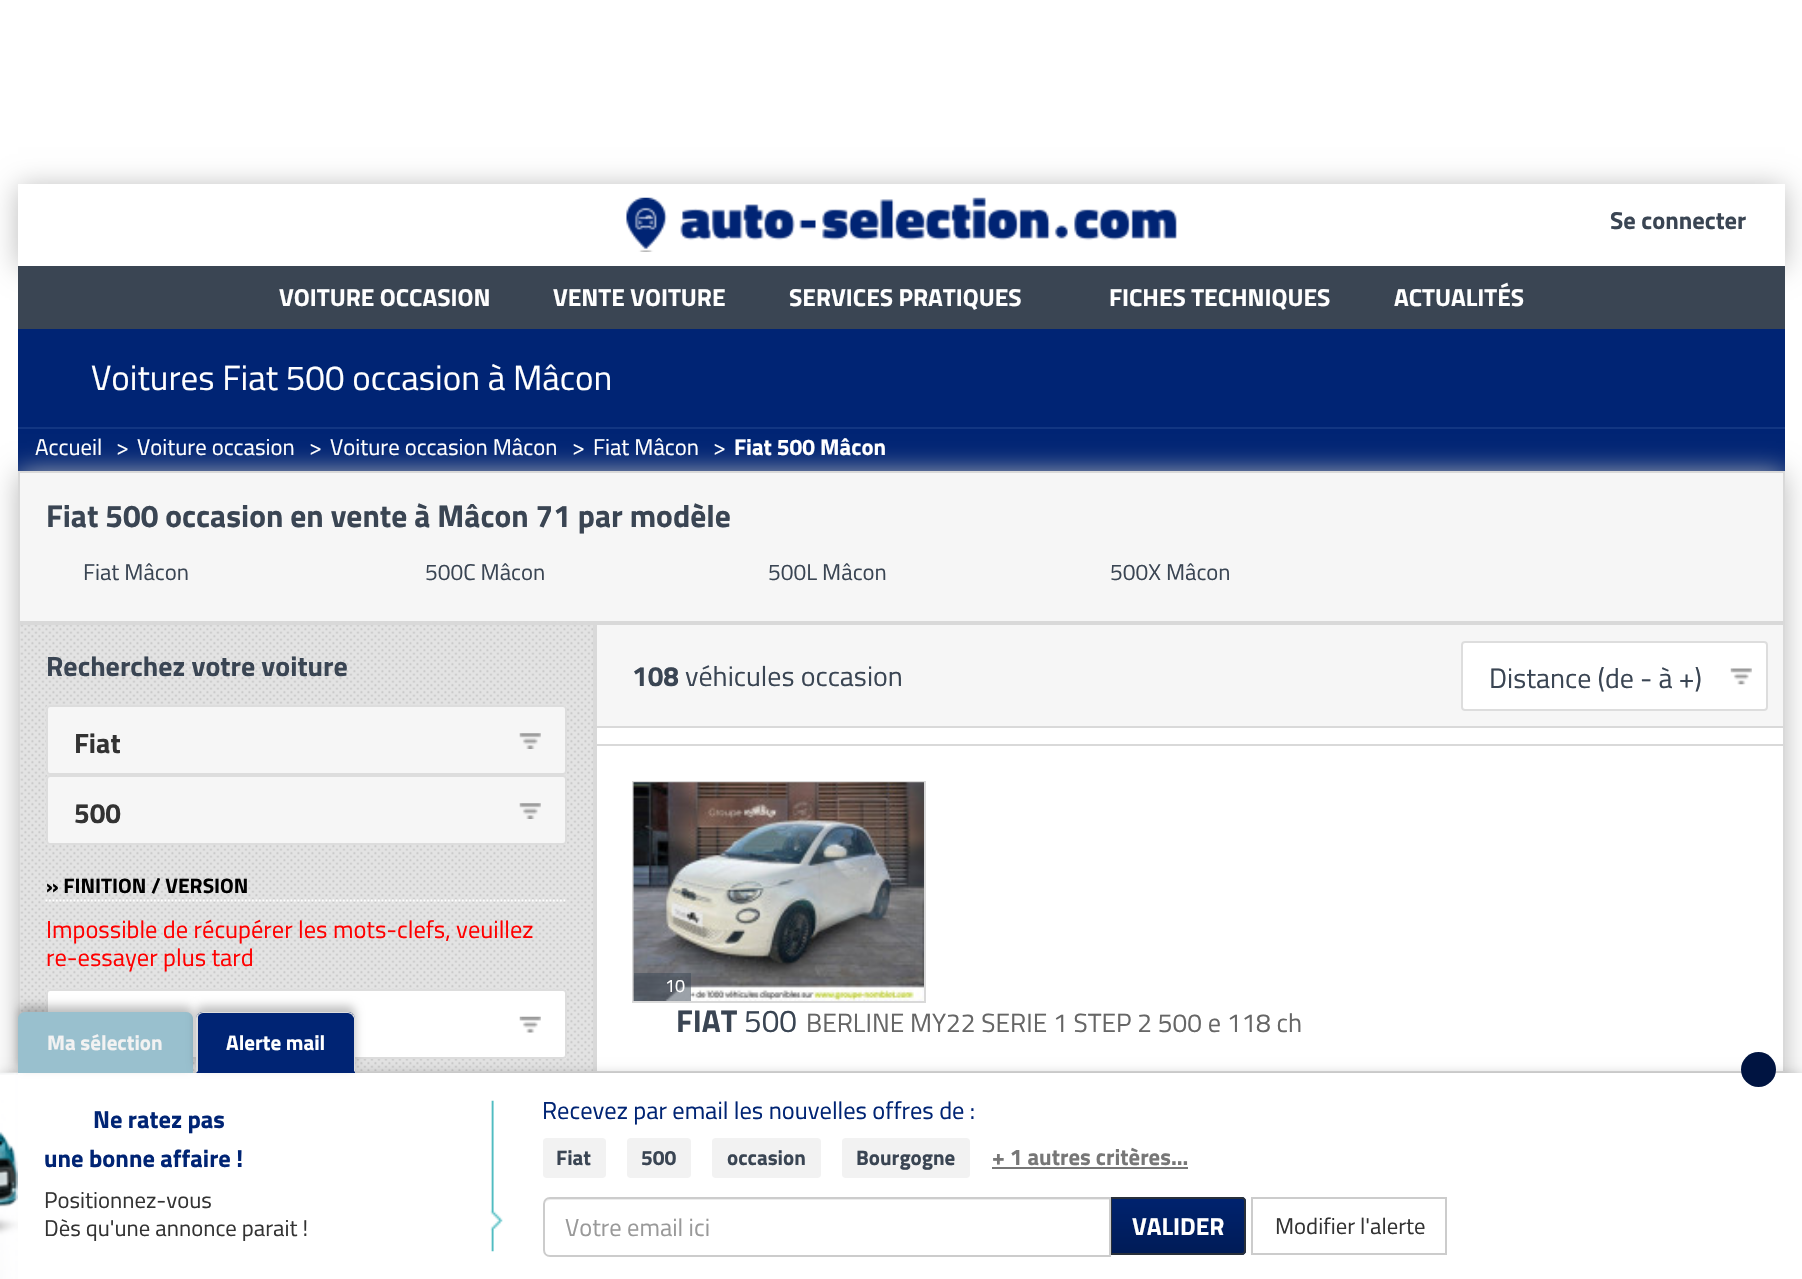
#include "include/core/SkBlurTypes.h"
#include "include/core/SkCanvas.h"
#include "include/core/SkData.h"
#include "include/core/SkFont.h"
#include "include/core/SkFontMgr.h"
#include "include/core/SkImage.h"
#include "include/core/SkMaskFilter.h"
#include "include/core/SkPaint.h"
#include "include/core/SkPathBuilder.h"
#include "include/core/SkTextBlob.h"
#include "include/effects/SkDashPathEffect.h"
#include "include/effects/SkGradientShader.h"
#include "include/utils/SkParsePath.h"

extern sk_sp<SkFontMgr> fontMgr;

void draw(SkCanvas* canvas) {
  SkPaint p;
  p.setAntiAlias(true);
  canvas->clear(SK_ColorWHITE);
  canvas->save();
  canvas->clipPath(SkPathBuilder(SkPathFillType::kEvenOdd).moveTo(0, 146).lineTo(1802, 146).lineTo(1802, 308).lineTo(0, 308).close().moveTo(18, 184).lineTo(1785, 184).lineTo(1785, 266).lineTo(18, 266).close().detach(), true);
  p.setColor(SkColorSetRGB(187, 187, 187));
  p.setMaskFilter(SkMaskFilter::MakeBlur(kNormal_SkBlurStyle, 13));
  canvas->drawRect(SkRect::MakeLTRB(18, 186, 1785, 268), p);
  p.setMaskFilter(nullptr);
  canvas->restore();
  canvas->drawImageRect(SkImages::DeferredFromEncodedData(SkData::MakeFromFileName("images/1.png")), SkRect::MakeLTRB(626, 197, 1177, 252), SkSamplingOptions());
  p.setColor(SkColorSetRGB(58, 69, 83));
  canvas->drawRect(SkRect::MakeLTRB(18, 266, 1785, 329), p);
  p.setColor(SkColorSetRGB(0, 36, 116));
  canvas->drawRect(SkRect::MakeLTRB(18, 329, 1785, 471), p);
  p.setColor(SkColorSetRGB(18, 54, 130));
  canvas->drawRect(SkRect::MakeLTRB(18, 427, 1785, 429), p);
  canvas->save();
  canvas->clipPath(SkPathBuilder(SkPathFillType::kEvenOdd).moveTo(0, 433).lineTo(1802, 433).lineTo(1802, 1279).lineTo(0, 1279).close().moveTo(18, 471).lineTo(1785, 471).lineTo(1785, 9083).lineTo(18, 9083).close().detach(), true);
  p.setColor(SkColorSetRGB(187, 187, 187));
  p.setMaskFilter(SkMaskFilter::MakeBlur(kNormal_SkBlurStyle, 13));
  canvas->drawRect(SkRect::MakeLTRB(18, 473, 1785, 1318), p);
  p.setMaskFilter(nullptr);
  canvas->restore();
  p.setColor(SkColorSetRGB(246, 246, 246));
  canvas->drawRect(SkRect::MakeLTRB(19, 472, 1784, 622), p);
  p.setStyle(SkPaint::kStroke_Style);
  p.setStrokeWidth(2);
  p.setColor(SkColorSetRGB(217, 217, 217));
  canvas->drawRect(SkRect::MakeLTRB(19, 472, 1784, 622), p);
  p.setStyle(SkPaint::kFill_Style);
  p.setColor(SkColorSetRGB(227, 227, 227));
  canvas->drawRect(SkRect::MakeLTRB(20, 625, 593, 1071), p);
  canvas->drawImageRect(SkImages::DeferredFromEncodedData(SkData::MakeFromFileName("images/2.png")), SkRect::MakeLTRB(20, 625, 593, 1071), SkSamplingOptions());
  p.setStyle(SkPaint::kStroke_Style);
  p.setColor(SkColorSetRGB(217, 217, 217));
  canvas->drawRect(SkRect::MakeLTRB(19, 624, 594, 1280), p);
  p.setStyle(SkPaint::kFill_Style);
  p.setColor(SkColorSetRGB(246, 246, 246));
  canvas->drawRoundRect(SkRect::MakeLTRB(46, 705, 567, 775), 4, 4, p);
  canvas->drawImageRect(SkImages::DeferredFromEncodedData(SkData::MakeFromFileName("images/3.png")), SkRect::MakeLTRB(519, 733, 541, 749), SkSamplingOptions());
  p.setStyle(SkPaint::kStroke_Style);
  p.setColor(SkColorSetRGB(221, 221, 221));
  canvas->drawRoundRect(SkRect::MakeLTRB(47, 706, 566, 774), 3, 3, p);
  p.setStyle(SkPaint::kFill_Style);
  p.setColor(SkColorSetRGB(246, 246, 246));
  canvas->drawRoundRect(SkRect::MakeLTRB(46, 775, 567, 845), 4, 4, p);
  canvas->drawImageRect(SkImages::DeferredFromEncodedData(SkData::MakeFromFileName("images/3.png")), SkRect::MakeLTRB(519, 803, 541, 819), SkSamplingOptions());
  p.setStyle(SkPaint::kStroke_Style);
  p.setColor(SkColorSetRGB(221, 221, 221));
  canvas->drawRoundRect(SkRect::MakeLTRB(47, 776, 566, 844), 3, 3, p);
  p.setStrokeWidth(1.8f);
  p.setColor(SK_ColorWHITE);
  p.setPathEffect(SkDashPathEffect::Make({{1.75f, 1.75f}}, 0));
  canvas->drawPath(SkPathBuilder().moveTo(45.5f, 900.5f).lineTo(567, 900.5f).detach(), p);
  p.setPathEffect(nullptr);
  p.setStyle(SkPaint::kFill_Style);
  canvas->drawRoundRect(SkRect::MakeLTRB(46, 989, 567, 1059), 4, 4, p);
  canvas->drawImageRect(SkImages::DeferredFromEncodedData(SkData::MakeFromFileName("images/4.png")), SkRect::MakeLTRB(519, 1016, 541, 1033), SkSamplingOptions());
  p.setStyle(SkPaint::kStroke_Style);
  p.setStrokeWidth(2);
  p.setColor(SkColorSetRGB(221, 221, 221));
  canvas->drawRoundRect(SkRect::MakeLTRB(47, 990, 566, 1058), 3, 3, p);
  p.setStyle(SkPaint::kFill_Style);
  p.setColor(SkColorSetRGB(246, 246, 246));
  canvas->drawRect(SkRect::MakeLTRB(596, 624, 1784, 727), p);
  p.setStyle(SkPaint::kStroke_Style);
  p.setColor(SkColorSetRGB(217, 217, 217));
  canvas->drawRect(SkRect::MakeLTRB(596, 624, 1784, 727), p);
  p.setStyle(SkPaint::kFill_Style);
  p.setColor(SK_ColorWHITE);
  canvas->drawRoundRect(SkRect::MakeLTRB(1461, 641, 1768, 711), 4, 4, p);
  canvas->drawImageRect(SkImages::DeferredFromEncodedData(SkData::MakeFromFileName("images/5.png")), SkRect::MakeLTRB(1730, 668, 1752, 685), SkSamplingOptions());
  p.setStyle(SkPaint::kStroke_Style);
  p.setColor(SkColorSetRGB(221, 221, 221));
  canvas->drawRoundRect(SkRect::MakeLTRB(1462, 642, 1767, 710), 3, 3, p);
  p.setStyle(SkPaint::kFill_Style);
  p.setColor(SkColorSetRGB(217, 217, 217));
  canvas->drawRect(SkRect::MakeLTRB(1783, 728, 1785, 744), p);
  canvas->drawRect(SkRect::MakeLTRB(595, 728, 597, 744), p);
  p.setStyle(SkPaint::kStroke_Style);
  canvas->drawRect(SkRect::MakeLTRB(596, 745, 1784, 1245), p);
  canvas->drawRect(SkRect::MakeLTRB(633, 782, 925, 1002), p);
  canvas->drawImageRect(SkImages::DeferredFromEncodedData(SkData::MakeFromFileName("images/6.png")), SkRect::MakeLTRB(633, 782, 924, 1001), SkSamplingOptions());
  p.setStyle(SkPaint::kFill_Style);
  p.setColor(SkColorSetARGB(128, 58, 69, 83));
  canvas->drawRect(SkRect::MakeLTRB(634, 973, 691, 1001), p);
  p.setColor(SkColorSetRGB(221, 221, 221));
  canvas->drawRect(SkRect::MakeLTRB(193, 1071, 1785, 1073), p);
  p.setColor(SkColorSetARGB(64, 0, 0, 0));
  p.setMaskFilter(SkMaskFilter::MakeBlur(kNormal_SkBlurStyle, 6));
  canvas->drawRect(SkRect::MakeLTRB(0, 1075, 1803, 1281), p);
  p.setMaskFilter(nullptr);
  p.setColor(SK_ColorWHITE);
  canvas->drawRect(SkRect::MakeLTRB(0, 1073, 1802, 1279), p);
  p.setColor(SkColorSetARGB(64, 0, 0, 0));
  p.setMaskFilter(SkMaskFilter::MakeBlur(kNormal_SkBlurStyle, 5));
  canvas->drawRoundRect(SkRect::MakeLTRB(18, 1006, 193, 1068), 7, 7, p);
  p.setMaskFilter(nullptr);
  p.setColor(SkColorSetRGB(153, 192, 206));
  canvas->drawPath(SkPathBuilder().moveTo(25, 1012).lineTo(186, 1012).cubicTo(190, 1012, 193, 1015, 193, 1019).lineTo(193, 1073).lineTo(18, 1073).lineTo(18, 1019).cubicTo(18, 1015, 21, 1012, 25, 1012).close().detach(), p);
  p.setColor(SkColorSetARGB(64, 0, 0, 0));
  p.setMaskFilter(SkMaskFilter::MakeBlur(kNormal_SkBlurStyle, 5));
  canvas->drawRoundRect(SkRect::MakeLTRB(196, 1006, 355, 1068), 7, 7, p);
  p.setMaskFilter(nullptr);
  p.setColor(SkColorSetRGB(0, 36, 116));
  canvas->drawPath(SkPathBuilder().moveTo(203, 1012).lineTo(348, 1012).cubicTo(352, 1012, 355, 1015, 355, 1019).lineTo(355, 1073).lineTo(196, 1073).lineTo(196, 1019).cubicTo(196, 1015, 199, 1012, 203, 1012).close().detach(), p);
  p.setColor(SkColorSetRGB(221, 221, 221));
  canvas->drawPath(SkPathBuilder().moveTo(203, 1012).cubicTo(201, 1012, 199, 1013, 198, 1014).lineTo(199, 1015).cubicTo(200, 1014, 201, 1013, 203, 1013).lineTo(348, 1013).cubicTo(349, 1013, 351, 1014, 352, 1015).lineTo(353, 1014).cubicTo(352, 1013, 350, 1012, 348, 1012).close().detach(), p);
  canvas->drawPath(SkPathBuilder().moveTo(355, 1072).lineTo(355, 1018).cubicTo(355, 1016, 354, 1015, 353, 1014).lineTo(352, 1015).lineTo(354, 1018).lineTo(354, 1071).close().detach(), p);
  canvas->drawPath(SkPathBuilder().moveTo(196, 1073).lineTo(198, 1071).lineTo(198, 1018).cubicTo(198, 1017, 198, 1016, 199, 1015).lineTo(198, 1014).cubicTo(197, 1015, 196, 1016, 196, 1018).close().detach(), p);
  p.setColor(SkColorSetRGB(0, 20, 65));
  canvas->drawCircle(1758.5f, 1069.5f, 17.5f, p);
  canvas->drawImageRect(SkImages::DeferredFromEncodedData(SkData::MakeFromFileName("images/7.png")), SkRect::MakeLTRB(0, 1072, 18, 1279), SkSamplingOptions());
  canvas->drawImageRect(SkImages::DeferredFromEncodedData(SkData::MakeFromFileName("images/8.png")), SkRect::MakeLTRB(490, 1100, 503, 1252), SkSamplingOptions());
  p.setColor(SkColorSetRGB(242, 242, 242));
  canvas->drawRoundRect(SkRect::MakeLTRB(543, 1138, 606, 1178), 4, 4, p);
  canvas->drawRoundRect(SkRect::MakeLTRB(627, 1138, 691, 1178), 4, 4, p);
  canvas->drawRoundRect(SkRect::MakeLTRB(712, 1138, 821, 1178), 4, 4, p);
  canvas->drawRoundRect(SkRect::MakeLTRB(842, 1138, 970, 1178), 4, 4, p);
  p.setColor(SkColorSetRGB(119, 119, 119));
  canvas->drawRect(SkRect::MakeLTRB(992, 1167, 1188, 1169), p);
  p.setColor(SkColorSetRGB(0, 36, 116));
  canvas->drawPath(SkPathBuilder().moveTo(1110, 1197).lineTo(1242, 1197).cubicTo(1244, 1197, 1246, 1199, 1246, 1201).lineTo(1246, 1251).cubicTo(1246, 1253, 1244, 1255, 1242, 1255).lineTo(1110, 1255).close().detach(), p);
  {
    const SkColor colors[] = {SkColorSetARGB(64, 0, 0, 0), SkColorSetARGB(13, 0, 0, 0)};
    const float stops[] = {0, 1};
    const SkPoint ends[] = {{1178, 1253}, {1178, 1199}};
    p.setShader(SkGradientShader::MakeLinear(ends, colors, stops, 2, SkTileMode::kClamp));
    p.setAlpha(255);
  }
  canvas->drawRect(SkRect::MakeLTRB(1112, 1199, 1246, 1253), p);
  p.setStyle(SkPaint::kStroke_Style);
  p.setShader(nullptr);
  p.setColor(SkColorSetRGB(41, 48, 58));
  canvas->drawPath(SkPathBuilder().moveTo(1111, 1198).lineTo(1242, 1198).cubicTo(1243.5f, 1198, 1245, 1199.5f, 1245, 1201).lineTo(1245, 1251).cubicTo(1245, 1252.5f, 1243.5f, 1254, 1242, 1254).lineTo(1111, 1254).close().detach(), p);
  p.setStyle(SkPaint::kFill_Style);
  p.setColor(SK_ColorWHITE);
  canvas->drawPath(SkPathBuilder().moveTo(550, 1197).lineTo(1111, 1197).lineTo(1111, 1257).lineTo(550, 1257).cubicTo(546, 1257, 543, 1254, 543, 1250).lineTo(543, 1204).cubicTo(543, 1200, 546, 1197, 550, 1197).close().detach(), p);
  p.setColor(SkColorSetRGB(236, 236, 236));
  canvas->drawPath(SkPathBuilder().moveTo(550, 1200).lineTo(1110, 1200).lineTo(1110, 1199).lineTo(549, 1199).cubicTo(545, 1199, 544, 1203, 544, 1206).cubicTo(544, 1203, 547, 1200, 550, 1200).close().detach(), p);
  p.setStyle(SkPaint::kStroke_Style);
  p.setColor(SkColorSetRGB(204, 204, 204));
  canvas->drawPath(SkPathBuilder().moveTo(550, 1198).lineTo(1110, 1198).lineTo(1110, 1256).lineTo(550, 1256).cubicTo(546.5f, 1256, 544, 1253.5f, 544, 1250).lineTo(544, 1204).cubicTo(544, 1200.5f, 546.5f, 1198, 550, 1198).close().detach(), p);
  canvas->drawRect(SkRect::MakeLTRB(1252, 1198, 1446, 1254), p);
  SkFont font1(fontMgr->matchFamilyStyle("Titillium Web", SkFontStyle::Bold()), 24.5f);
  font1.setSubpixel(true);
  p.setStyle(SkPaint::kFill_Style);
  p.setColor(SkColorSetRGB(58, 69, 83));
  canvas->drawString("Se connecter", 1610, 229, font1, p);
  p.setColor(SK_ColorWHITE);
  canvas->drawString("VOITURE OCCASION", 279, 306, font1, p);
  canvas->drawString("VENTE VOITURE", 553, 306, font1, p);
  canvas->drawString("SERVICES PRATIQUES", 789, 306, font1, p);
  canvas->drawString("FICHES TECHNIQUES", 1109, 306, font1, p);
  canvas->drawString("ACTUALITÉS", 1394, 306, font1, p);
  SkFont font2(fontMgr->matchFamilyStyle("Titillium Web", SkFontStyle::Normal()), 35);
  font2.setSubpixel(true);
  canvas->drawString("Voitures Fiat 500 occasion à Mâcon", 91, 390, font2, p);
  SkFont font3(fontMgr->matchFamilyStyle("Titillium Web", SkFontStyle::Normal()), 22.75f);
  font3.setSubpixel(true);
  canvas->drawString("Accueil", 35, 455, font3, p);
  canvas->drawString(">", 116, 455, font3, p);
  canvas->drawString("Voiture occasion", 137, 455, font3, p);
  canvas->drawString(">", 309, 455, font3, p);
  canvas->drawString("Voiture occasion Mâcon", 330, 455, font3, p);
  canvas->drawString(">", 572, 455, font3, p);
  canvas->drawString("Fiat Mâcon", 593, 455, font3, p);
  canvas->drawString(">", 713, 455, font3, p);
  SkFont font4(fontMgr->matchFamilyStyle("Titillium Web", SkFontStyle::Bold()), 22.75f);
  font4.setSubpixel(true);
  canvas->drawString("Fiat 500 Mâcon", 734, 455, font4, p);
  SkFont font5(fontMgr->matchFamilyStyle("Titillium Web", SkFontStyle::Bold()), 31.5f);
  font5.setSubpixel(true);
  p.setColor(SkColorSetRGB(58, 69, 83));
  canvas->drawString("Fiat 500 occasion en vente à Mâcon 71 par modèle", 46, 527, font5, p);
  canvas->drawString("Fiat Mâcon", 83, 580, font3, p);
  canvas->drawString("500C Mâcon", 425, 580, font3, p);
  canvas->drawString("500L Mâcon", 768, 580, font3, p);
  canvas->drawString("500X Mâcon", 1110, 580, font3, p);
  SkFont font6(fontMgr->matchFamilyStyle("Titillium Web", SkFontStyle::Bold()), 28);
  font6.setSubpixel(true);
  canvas->drawString("Recherchez votre voiture", 46, 676, font6, p);
  p.setColor(SkColorSetRGB(51, 51, 51));
  canvas->drawString("Fiat", 74, 753, font6, p);
  canvas->drawString("500", 74, 823, font6, p);
  SkFont font7(fontMgr->matchFamilyStyle("Titillium Web", SkFontStyle::Bold()), 21);
  font7.setSubpixel(true);
  p.setColor(SK_ColorBLACK);
  canvas->drawString("» FINITION / VERSION", 46, 893, font7, p);
  SkFont font8(fontMgr->matchFamilyStyle("Titillium Web", SkFontStyle::Normal()), 24.5f);
  font8.setSubpixel(true);
  p.setColor(SkColorSetRGB(255, 0, 0));
  canvas->drawString("Impossible de récupérer les mots-clefs, veuillez", 46, 938, font8, p);
  canvas->drawString("re-essayer plus tard", 46, 966, font8, p);
  p.setColor(SkColorSetRGB(58, 69, 83));
  canvas->drawString("108", 632, 686, font6, p);
  SkFont font9(fontMgr->matchFamilyStyle("Titillium Web", SkFontStyle::Normal()), 28);
  font9.setSubpixel(true);
  canvas->drawString("véhicules occasion", 685, 686, font9, p);
  canvas->drawString("Distance (de - à +)", 1489, 688, font9, p);
  SkFont font10(fontMgr->matchFamilyStyle("Titillium Web", SkFontStyle::Normal()), 18);
  font10.setSubpixel(true);
  p.setColor(SK_ColorWHITE);
  canvas->drawString("10", 665, 992, font10, p);
  p.setColor(SkColorSetRGB(58, 69, 83));
  canvas->drawString("FIAT", 676, 1032, font5, p);
  SkFont font11(fontMgr->matchFamilyStyle("Titillium Web", SkFontStyle::Normal()), 31.5f);
  font11.setSubpixel(true);
  canvas->drawString("500", 744, 1032, font11, p);
  SkFont font12(fontMgr->matchFamilyStyle("Titillium Web", SkFontStyle::Normal()), 26.25f);
  font12.setSubpixel(true);
  p.setColor(SkColorSetRGB(102, 102, 102));
  canvas->drawString("BERLINE MY22 SERIE 1 STEP 2 500 e 118 ch", 806, 1032, font12, p);
  p.setColor(SkColorSetRGB(242, 242, 242));
  canvas->drawString("Ma sélection", 47, 1050, font7, p);
  p.setColor(SK_ColorWHITE);
  canvas->drawString("Alerte mail", 226, 1050, font7, p);
  p.setColor(SkColorSetRGB(0, 36, 116));
  canvas->drawString("Ne ratez pas", 93, 1128, font1, p);
  canvas->drawString("une bonne affaire !", 44, 1167, font1, p);
  p.setColor(SkColorSetRGB(51, 51, 51));
  canvas->drawString("Positionnez-vous", 44, 1208, font3, p);
  canvas->drawString("Dès qu'une annonce parait !", 44, 1236, font3, p);
  p.setColor(SkColorSetRGB(0, 36, 116));
  canvas->drawString("Recevez par email les nouvelles offres de :", 542, 1119, font8, p);
  p.setColor(SkColorSetRGB(58, 69, 83));
  canvas->drawString("Fiat", 556, 1165, font7, p);
  canvas->drawString("500", 641, 1165, font7, p);
  canvas->drawString("occasion", 727, 1165, font7, p);
  canvas->drawString("Bourgogne", 856, 1165, font7, p);
  p.setColor(SkColorSetRGB(119, 119, 119));
  canvas->drawString("+ 1 autres critères...", 992, 1165, font4, p);
  p.setColor(SkColorSetRGB(153, 153, 153));
  canvas->drawString("Votre email ici", 565, 1236, font8, p);
  p.setColor(SK_ColorWHITE);
  canvas->drawString("VALIDER", 1132, 1235, font1, p);
  p.setColor(SkColorSetRGB(51, 51, 51));
  canvas->drawString("Modifier l'alerte", 1275, 1234, font3, p);
}
